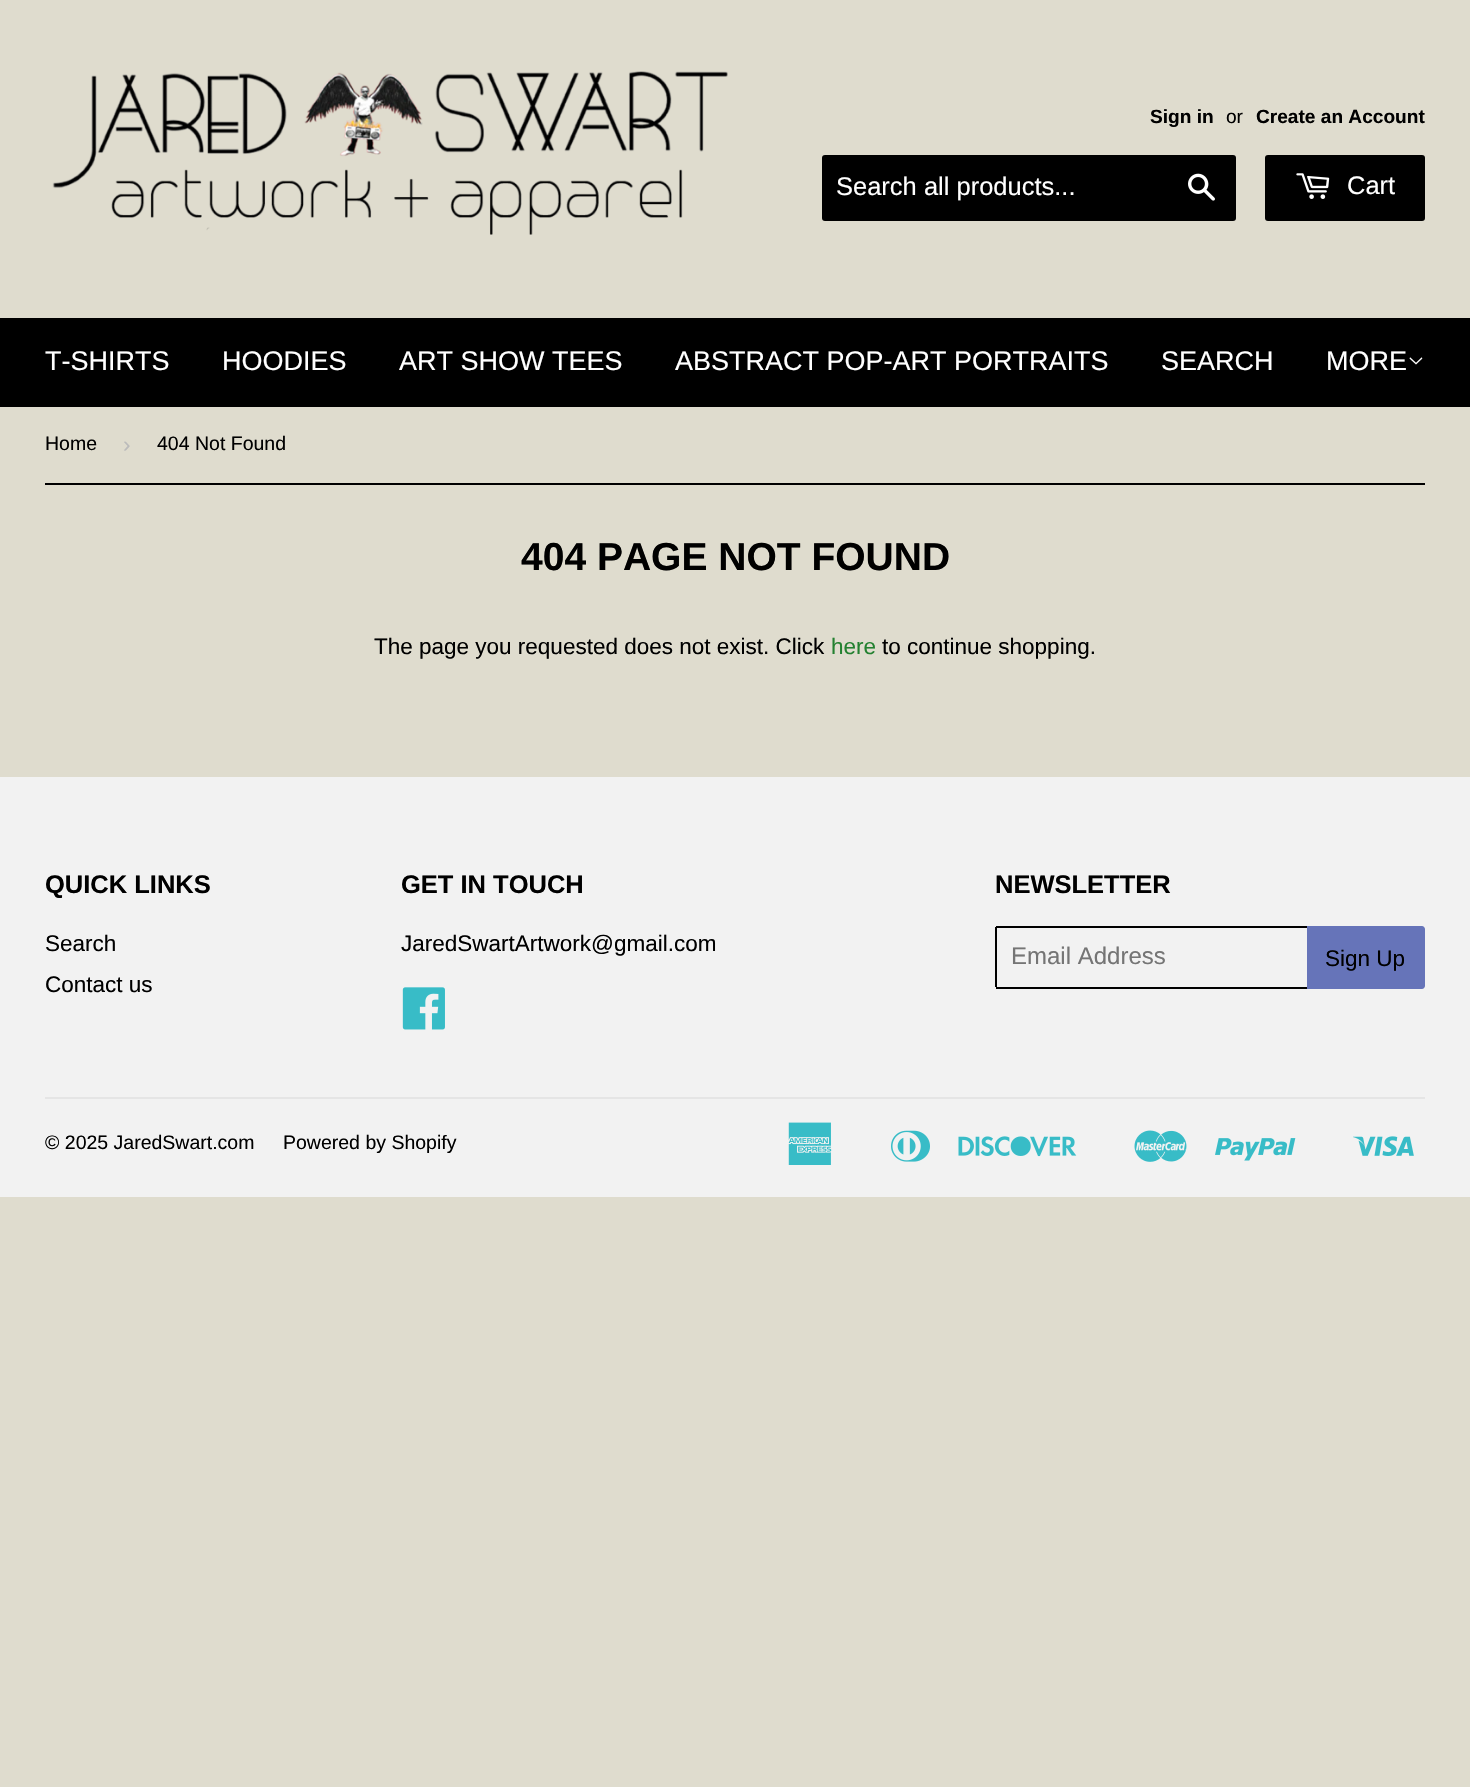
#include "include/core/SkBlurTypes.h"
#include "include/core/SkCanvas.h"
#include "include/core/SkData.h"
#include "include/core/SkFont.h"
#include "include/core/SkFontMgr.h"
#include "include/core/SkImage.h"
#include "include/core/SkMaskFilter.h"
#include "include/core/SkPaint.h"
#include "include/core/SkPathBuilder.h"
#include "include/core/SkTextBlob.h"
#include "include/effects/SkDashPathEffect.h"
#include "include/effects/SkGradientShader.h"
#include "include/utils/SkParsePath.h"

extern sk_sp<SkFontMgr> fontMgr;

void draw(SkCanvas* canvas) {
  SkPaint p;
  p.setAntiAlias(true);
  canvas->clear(SkColorSetRGB(223, 220, 206));
  canvas->drawImageRect(SkImages::DeferredFromEncodedData(SkData::MakeFromFileName("images/1.png")), SkRect::MakeLTRB(52, 71, 728, 235), SkSamplingOptions());
  p.setColor(SK_ColorBLACK);
  canvas->drawRoundRect(SkRect::MakeLTRB(822, 155, 1236, 221), 3, 3, p);
  canvas->drawImageRect(SkImages::DeferredFromEncodedData(SkData::MakeFromFileName("images/2.png")), SkRect::MakeLTRB(1188, 173, 1215, 201), SkSamplingOptions());
  canvas->drawRoundRect(SkRect::MakeLTRB(1265, 155, 1425, 221), 3, 3, p);
  canvas->drawImageRect(SkImages::DeferredFromEncodedData(SkData::MakeFromFileName("images/3.png")), SkRect::MakeLTRB(1296, 173, 1330, 199), SkSamplingOptions());
  canvas->drawRect(SkRect::MakeLTRB(0, 318, 1470, 407), p);
  canvas->drawImageRect(SkImages::DeferredFromEncodedData(SkData::MakeFromFileName("images/4.png")), SkRect::MakeLTRB(1409, 357, 1423, 365), SkSamplingOptions());
  canvas->drawRect(SkRect::MakeLTRB(45, 483, 1425, 485), p);
  p.setColor(SkColorSetRGB(242, 242, 242));
  canvas->drawRect(SkRect::MakeLTRB(0, 777, 1470, 1197), p);
  canvas->drawImageRect(SkImages::DeferredFromEncodedData(SkData::MakeFromFileName("images/5.png")), SkRect::MakeLTRB(402, 987, 445, 1030), SkSamplingOptions());
  p.setColor(SK_ColorBLACK);
  canvas->drawRect(SkRect::MakeLTRB(996, 926, 1307, 928), p);
  canvas->drawRect(SkRect::MakeLTRB(996, 987, 1307, 989), p);
  canvas->drawRect(SkRect::MakeLTRB(995, 927, 997, 987), p);
  p.setColor(SkColorSetRGB(102, 116, 185));
  canvas->drawPath(SkPathBuilder().moveTo(1307, 926).lineTo(1422, 926).cubicTo(1423.5f, 926, 1425, 927.5f, 1425, 929).lineTo(1425, 986).cubicTo(1425, 987.5f, 1423.5f, 989, 1422, 989).lineTo(1307, 989).close().detach(), p);
  p.setColor(SkColorSetRGB(229, 229, 229));
  canvas->drawRect(SkRect::MakeLTRB(45, 1097, 1425, 1099), p);
  canvas->drawImageRect(SkImages::DeferredFromEncodedData(SkData::MakeFromFileName("images/6.png")), SkRect::MakeLTRB(788, 1122, 832, 1165), SkSamplingOptions());
  canvas->drawImageRect(SkImages::DeferredFromEncodedData(SkData::MakeFromFileName("images/7.png")), SkRect::MakeLTRB(891, 1130, 930, 1162), SkSamplingOptions());
  canvas->drawImageRect(SkImages::DeferredFromEncodedData(SkData::MakeFromFileName("images/8.png")), SkRect::MakeLTRB(958, 1136, 1077, 1157), SkSamplingOptions());
  canvas->drawImageRect(SkImages::DeferredFromEncodedData(SkData::MakeFromFileName("images/9.png")), SkRect::MakeLTRB(1134, 1130, 1187, 1162), SkSamplingOptions());
  canvas->drawImageRect(SkImages::DeferredFromEncodedData(SkData::MakeFromFileName("images/10.png")), SkRect::MakeLTRB(1215, 1138, 1296, 1161), SkSamplingOptions());
  canvas->drawImageRect(SkImages::DeferredFromEncodedData(SkData::MakeFromFileName("images/11.png")), SkRect::MakeLTRB(1353, 1136, 1414, 1156), SkSamplingOptions());
  SkFont font1(fontMgr->matchFamilyStyle("Liberation Sans", SkFontStyle::Bold()), 19.1f);
  font1.setSubpixel(true);
  p.setColor(SK_ColorBLACK);
  canvas->drawString("Sign in", 1150, 123, font1, p);
  SkFont font2(fontMgr->matchFamilyStyle("Liberation Sans", SkFontStyle::Normal()), 19.1f);
  font2.setSubpixel(true);
  canvas->drawString("or", 1226, 123, font2, p);
  canvas->drawString("Create an Account", 1256, 123, font1, p);
  SkFont font3(fontMgr->matchFamilyStyle("Liberation Sans", SkFontStyle::Normal()), 25.5f);
  font3.setSubpixel(true);
  p.setColor(SK_ColorWHITE);
  canvas->drawString("Search all products...", 836, 195, font3, p);
  canvas->drawString("Cart", 1347, 194, font3, p);
  SkFont font4(fontMgr->matchFamilyStyle("Liberation Sans", SkFontStyle::Normal()), 27);
  font4.setSubpixel(true);
  canvas->drawString("T-SHIRTS", 45, 370, font4, p);
  canvas->drawString("HOODIES", 222, 370, font4, p);
  canvas->drawString("ART SHOW TEES", 399, 370, font4, p);
  canvas->drawString("ABSTRACT POP-ART PORTRAITS", 675, 370, font4, p);
  canvas->drawString("SEARCH", 1161, 370, font4, p);
  canvas->drawString("MORE", 1326, 370, font4, p);
  SkFont font5(fontMgr->matchFamilyStyle("Liberation Sans", SkFontStyle::Normal()), 19.5f);
  font5.setSubpixel(true);
  p.setColor(SK_ColorBLACK);
  canvas->drawString("Home", 45, 450, font5, p);
  SkFont font6(fontMgr->matchFamilyStyle("Liberation Sans", SkFontStyle::Normal()), 22.5f);
  font6.setSubpixel(true);
  p.setColor(SkColorSetRGB(187, 187, 187));
  canvas->drawString("›", 123, 452, font6, p);
  p.setColor(SK_ColorBLACK);
  canvas->drawString("404 Not Found", 157, 450, font5, p);
  SkFont font7(fontMgr->matchFamilyStyle("Liberation Sans", SkFontStyle::Bold()), 39);
  font7.setSubpixel(true);
  canvas->drawString("404 PAGE NOT FOUND", 521, 570, font7, p);
  canvas->drawString("The page you requested does not exist. Click", 374, 654, font6, p);
  p.setColor(SkColorSetRGB(35, 129, 48));
  canvas->drawString("here", 831, 654, font6, p);
  p.setColor(SK_ColorBLACK);
  canvas->drawString("to continue shopping.", 882, 654, font6, p);
  SkFont font8(fontMgr->matchFamilyStyle("Liberation Sans", SkFontStyle::Bold()), 25.5f);
  font8.setSubpixel(true);
  canvas->drawString("QUICK LINKS", 45, 893, font8, p);
  canvas->drawString("Search", 45, 951, font6, p);
  canvas->drawString("Contact us", 45, 992, font6, p);
  canvas->drawString("GET IN TOUCH", 401, 893, font8, p);
  canvas->drawString("JaredSwartArtwork@gmail.com", 401, 951, font6, p);
  canvas->drawString("NEWSLETTER", 995, 893, font8, p);
  SkFont font9(fontMgr->matchFamilyStyle("Liberation Sans", SkFontStyle::Normal()), 24);
  font9.setSubpixel(true);
  p.setColor(SkColorSetRGB(117, 117, 117));
  canvas->drawString("Email Address", 1011, 964, font9, p);
  p.setColor(SK_ColorBLACK);
  canvas->drawString("Sign Up", 1325, 966, font6, p);
  canvas->drawString("© 2025 JaredSwart.com", 45, 1149, font5, p);
  canvas->drawString("Powered by Shopify", 283, 1149, font5, p);
}
